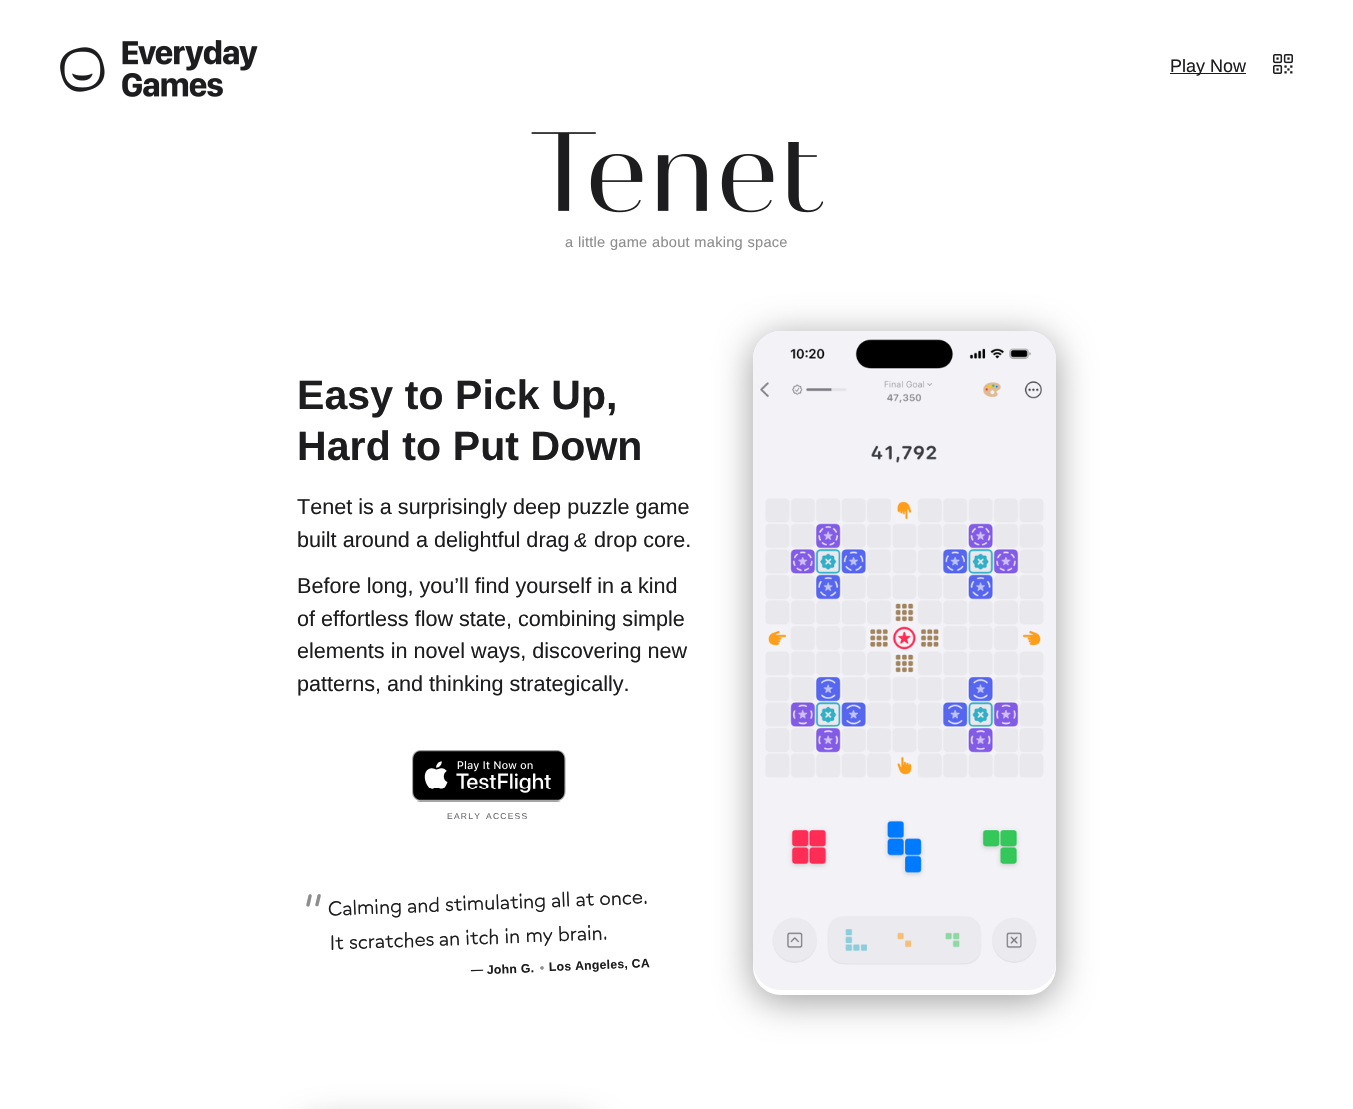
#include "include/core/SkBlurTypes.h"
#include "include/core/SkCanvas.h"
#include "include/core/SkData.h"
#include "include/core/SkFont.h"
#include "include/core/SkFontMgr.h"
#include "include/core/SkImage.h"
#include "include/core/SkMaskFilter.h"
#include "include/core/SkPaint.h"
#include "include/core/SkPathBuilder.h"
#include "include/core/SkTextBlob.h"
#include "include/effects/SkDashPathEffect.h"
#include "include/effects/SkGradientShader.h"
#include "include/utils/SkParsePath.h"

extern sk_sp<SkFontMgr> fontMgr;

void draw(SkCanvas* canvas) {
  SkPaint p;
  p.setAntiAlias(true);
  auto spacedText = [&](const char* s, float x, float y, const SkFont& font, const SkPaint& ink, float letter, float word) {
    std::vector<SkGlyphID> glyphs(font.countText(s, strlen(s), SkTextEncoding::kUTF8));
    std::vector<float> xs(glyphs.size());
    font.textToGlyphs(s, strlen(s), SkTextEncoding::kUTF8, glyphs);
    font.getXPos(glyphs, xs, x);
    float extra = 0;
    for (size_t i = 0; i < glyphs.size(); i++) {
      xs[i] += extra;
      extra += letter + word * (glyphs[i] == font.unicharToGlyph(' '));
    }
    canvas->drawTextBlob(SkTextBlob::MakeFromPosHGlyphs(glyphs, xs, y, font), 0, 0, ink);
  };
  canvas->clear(SK_ColorWHITE);
  canvas->drawImageRect(SkImages::DeferredFromEncodedData(SkData::MakeFromFileName("images/1.png")), SkRect::MakeLTRB(60, 40, 258, 97), SkSamplingOptions());
  p.setColor(SkColorSetRGB(29, 29, 31));
  canvas->drawRect(SkRect::MakeLTRB(1170, 73, 1246, 74), p);
  canvas->drawImageRect(SkImages::DeferredFromEncodedData(SkData::MakeFromFileName("images/2.png")), SkRect::MakeLTRB(1273, 54, 1293, 74), SkSamplingOptions());
  canvas->drawImageRect(SkImages::DeferredFromEncodedData(SkData::MakeFromFileName("images/3.png")), SkRect::MakeLTRB(531, 132, 823, 213), SkSamplingOptions());
  canvas->drawImageRect(SkImages::DeferredFromEncodedData(SkData::MakeFromFileName("images/4.png")), SkRect::MakeLTRB(412, 750, 566, 802), SkSamplingOptions());
  canvas->save();
  canvas->clipPath(SkPathBuilder(SkPathFillType::kEvenOdd).moveTo(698, 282).lineTo(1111, 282).lineTo(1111, 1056).lineTo(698, 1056).close().moveTo(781, 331).lineTo(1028, 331).cubicTo(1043.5f, 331, 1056, 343.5f, 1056, 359).lineTo(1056, 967).cubicTo(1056, 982.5f, 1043.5f, 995, 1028, 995).lineTo(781, 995).cubicTo(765.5f, 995, 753, 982.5f, 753, 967).lineTo(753, 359).cubicTo(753, 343.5f, 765.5f, 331, 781, 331).close().detach(), true);
  p.setColor(SkColorSetARGB(97, 0, 0, 0));
  p.setMaskFilter(SkMaskFilter::MakeBlur(kNormal_SkBlurStyle, 18));
  canvas->drawRoundRect(SkRect::MakeLTRB(753, 337, 1056, 1001), 28, 28, p);
  p.setMaskFilter(nullptr);
  canvas->restore();
  canvas->drawImageRect(SkImages::DeferredFromEncodedData(SkData::MakeFromFileName("images/5.png")), SkRect::MakeLTRB(753, 331, 1056, 990), SkSamplingOptions());
  p.setMaskFilter(SkMaskFilter::MakeBlur(kNormal_SkBlurStyle, 18));
  canvas->drawRoundRect(SkRect::MakeLTRB(297, 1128, 601, 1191), 28, 28, p);
  p.setMaskFilter(nullptr);
  SkFont font1(fontMgr->matchFamilyStyle("Liberation Sans", SkFontStyle::Normal()), 18);
  font1.setSubpixel(true);
  p.setColor(SkColorSetRGB(29, 29, 31));
  canvas->drawString("Play Now", 1170, 72, font1, p);
  SkFont font2(fontMgr->matchFamilyStyle("Liberation Sans", SkFontStyle::Normal()), 14.6f);
  font2.setSubpixel(true);
  p.setColor(SkColorSetRGB(141, 141, 142));
  spacedText("a little game about making space", 565, 247, font2, p, 0.25f, 0.25f);
  SkFont font3(fontMgr->matchFamilyStyle("Liberation Sans", SkFontStyle::Bold()), 41);
  font3.setSubpixel(true);
  p.setColor(SkColorSetRGB(29, 29, 31));
  spacedText("Easy to Pick Up,", 297, 409, font3, p, 0.1f, 0);
  spacedText("Hard to Put Down", 297, 460, font3, p, 0.1f, 0);
  SkFont font4(fontMgr->matchFamilyStyle("Liberation Sans", SkFontStyle::Normal()), 21.6f);
  font4.setSubpixel(true);
  canvas->drawString("Tenet is a surprisingly deep puzzle game", 297, 514, font4, p);
  canvas->drawString("built around a delightful drag", 297, 547, font4, p);
  SkFont font5(fontMgr->matchFamilyStyle("Liberation Sans", SkFontStyle::Italic()), 20);
  font5.setSubpixel(true);
  canvas->drawString("&", 574, 547, font5, p);
  canvas->drawString("drop core.", 594, 547, font4, p);
  canvas->drawString("Before long, you’ll find yourself in a kind", 297, 593, font4, p);
  canvas->drawString("of effortless flow state, combining simple", 297, 626, font4, p);
  canvas->drawString("elements in novel ways, discovering new", 297, 658, font4, p);
  canvas->drawString("patterns, and thinking strategically.", 297, 691, font4, p);
  SkFont font6(fontMgr->matchFamilyStyle("Liberation Sans", SkFontStyle::Normal()), 8.5f);
  font6.setSubpixel(true);
  p.setColor(SkColorSetRGB(105, 105, 109));
  spacedText("EARLY", 447, 819, font6, p, 1.25f, 0);
  spacedText("ACCESS", 486, 819, font6, p, 1.25f, 0);
  SkFont font7(fontMgr->matchFamilyStyle("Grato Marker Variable", SkFontStyle::Normal()), 44);
  font7.setSubpixel(true);
  p.setColor(SkColorSetRGB(141, 141, 142));
  canvas->save();
  canvas->rotate(-2.2f, 305, 928);
  canvas->drawString("“", 305, 928, font7, p);
  canvas->restore();
  SkFont font8(fontMgr->matchFamilyStyle("Grato Marker Variable", SkFontStyle::Normal()), 19.4f);
  font8.setSubpixel(true);
  p.setColor(SkColorSetRGB(29, 29, 31));
  canvas->save();
  canvas->rotate(-2.2f, 328, 916);
  spacedText("Calming and stimulating all at once.", 328, 916, font8, p, 0, -0.25f);
  canvas->restore();
  canvas->save();
  canvas->rotate(-2.2f, 330, 950);
  canvas->drawString("It scratches", 330, 950, font8, p);
  canvas->restore();
  canvas->save();
  canvas->rotate(-2.2f, 439, 946);
  canvas->drawString("an itch in my brain.", 439, 946, font8, p);
  canvas->restore();
  SkFont font9(fontMgr->matchFamilyStyle("Liberation Sans", SkFontStyle::Bold()), 12.25f);
  font9.setSubpixel(true);
  canvas->save();
  canvas->rotate(-2.2f, 487, 974);
  spacedText("John G.", 487, 974, font9, p, 0.25f, 0);
  canvas->restore();
  p.setColor(SkColorSetRGB(141, 141, 142));
  canvas->save();
  canvas->rotate(-2.2f, 540, 972);
  spacedText("•", 540, 972, font9, p, 0.25f, 0);
  canvas->restore();
  p.setColor(SkColorSetRGB(29, 29, 31));
  canvas->save();
  canvas->rotate(-2.2f, 549, 971);
  spacedText("Los Angeles, CA", 549, 971, font9, p, 0.25f, 0);
  canvas->restore();
  canvas->save();
  canvas->rotate(-2.2f, 471, 974);
  spacedText("—", 471, 974, font9, p, 0.25f, 0);
  canvas->restore();
}
